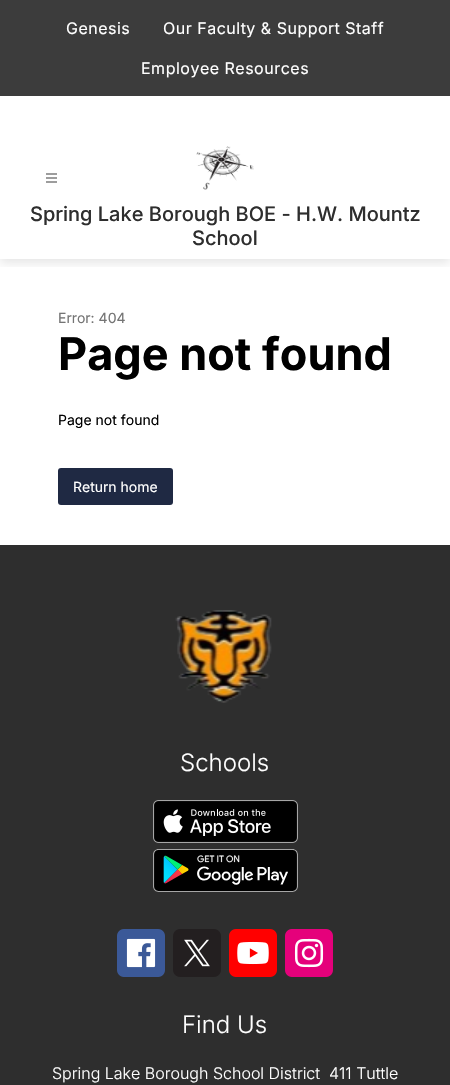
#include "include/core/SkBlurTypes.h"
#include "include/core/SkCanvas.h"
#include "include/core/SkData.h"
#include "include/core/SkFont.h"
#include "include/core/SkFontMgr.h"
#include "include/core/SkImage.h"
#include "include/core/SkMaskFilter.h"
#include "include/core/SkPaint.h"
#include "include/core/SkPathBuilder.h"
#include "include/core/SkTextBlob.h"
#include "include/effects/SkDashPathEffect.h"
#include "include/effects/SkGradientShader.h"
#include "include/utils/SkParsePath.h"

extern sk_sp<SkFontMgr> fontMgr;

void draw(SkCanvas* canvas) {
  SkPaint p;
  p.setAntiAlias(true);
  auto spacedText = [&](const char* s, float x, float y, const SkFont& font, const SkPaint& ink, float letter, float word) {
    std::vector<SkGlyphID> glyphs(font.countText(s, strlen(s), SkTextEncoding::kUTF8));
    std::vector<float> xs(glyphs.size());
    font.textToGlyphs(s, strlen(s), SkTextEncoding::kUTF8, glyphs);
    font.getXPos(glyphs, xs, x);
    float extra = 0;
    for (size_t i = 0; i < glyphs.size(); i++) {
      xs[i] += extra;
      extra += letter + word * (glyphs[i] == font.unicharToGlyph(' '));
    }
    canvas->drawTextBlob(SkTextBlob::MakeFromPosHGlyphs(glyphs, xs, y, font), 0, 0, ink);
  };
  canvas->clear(SK_ColorWHITE);
  canvas->save();
  canvas->clipRect(SkRect::MakeLTRB(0, 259, 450, 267));
  p.setColor(SkColorSetARGB(26, 0, 0, 0));
  p.setMaskFilter(SkMaskFilter::MakeBlur(kNormal_SkBlurStyle, 5));
  canvas->drawRect(SkRect::MakeLTRB(0, 4, 450, 263), p);
  p.setMaskFilter(nullptr);
  canvas->restore();
  p.setColor(SkColorSetRGB(60, 60, 60));
  canvas->drawRect(SkRect::MakeLTRB(0, 0, 450, 96), p);
  canvas->drawImageRect(SkImages::DeferredFromEncodedData(SkData::MakeFromFileName("images/1.png")), SkRect::MakeLTRB(46, 173, 57, 183), SkSamplingOptions());
  canvas->drawImageRect(SkImages::DeferredFromEncodedData(SkData::MakeFromFileName("images/2.png")), SkRect::MakeLTRB(196, 146, 254, 190), SkSamplingOptions());
  p.setColor(SkColorSetRGB(31, 41, 67));
  canvas->drawRoundRect(SkRect::MakeLTRB(58, 468, 173, 505), 3, 3, p);
  p.setColor(SkColorSetRGB(46, 46, 46));
  canvas->drawRect(SkRect::MakeLTRB(0, 545, 450, 1085), p);
  canvas->drawImageRect(SkImages::DeferredFromEncodedData(SkData::MakeFromFileName("images/3.png")), SkRect::MakeLTRB(175, 610, 272, 703), SkSamplingOptions());
  canvas->drawImageRect(SkImages::DeferredFromEncodedData(SkData::MakeFromFileName("images/4.png")), SkRect::MakeLTRB(153, 800, 298, 843), SkSamplingOptions());
  canvas->drawImageRect(SkImages::DeferredFromEncodedData(SkData::MakeFromFileName("images/5.png")), SkRect::MakeLTRB(153, 849, 298, 892), SkSamplingOptions());
  canvas->drawImageRect(SkImages::DeferredFromEncodedData(SkData::MakeFromFileName("images/6.png")), SkRect::MakeLTRB(117, 929, 165, 977), SkSamplingOptions());
  canvas->drawImageRect(SkImages::DeferredFromEncodedData(SkData::MakeFromFileName("images/7.png")), SkRect::MakeLTRB(173, 929, 221, 977), SkSamplingOptions());
  canvas->drawImageRect(SkImages::DeferredFromEncodedData(SkData::MakeFromFileName("images/8.png")), SkRect::MakeLTRB(229, 929, 277, 977), SkSamplingOptions());
  canvas->drawImageRect(SkImages::DeferredFromEncodedData(SkData::MakeFromFileName("images/9.png")), SkRect::MakeLTRB(285, 929, 333, 977), SkSamplingOptions());
  SkFont font1(fontMgr->matchFamilyStyle("Inter", SkFontStyle::Normal()), 16);
  font1.setSubpixel(true);
  p.setColor(SK_ColorWHITE);
  spacedText("Genesis", 66, 34, font1, p, 0.5f, 0);
  spacedText("Our Faculty & Support Staff", 163, 34, font1, p, 0.5f, 0);
  spacedText("Employee Resources", 141, 74, font1, p, 0.5f, 0);
  SkFont font2(fontMgr->matchFamilyStyle("Inter", SkFontStyle(500, SkFontStyle::kNormal_Width, SkFontStyle::kUpright_Slant)), 20);
  font2.setSubpixel(true);
  p.setColor(SkColorSetRGB(46, 46, 46));
  canvas->drawString("Spring Lake Borough BOE - H.W. Mountz", 30, 221, font2, p);
  canvas->drawString("School", 192, 245, font2, p);
  SkFont font3(fontMgr->matchFamilyStyle("Inter", SkFontStyle::Normal()), 14);
  font3.setSubpixel(true);
  p.setColor(SkColorSetRGB(116, 116, 116));
  canvas->drawString("Error: 404", 58, 323, font3, p);
  SkFont font4(fontMgr->matchFamilyStyle("Inter", SkFontStyle::Bold()), 45);
  font4.setSubpixel(true);
  p.setColor(SK_ColorBLACK);
  canvas->drawString("Page not found", 58, 370, font4, p);
  canvas->drawString("Page not found", 58, 425, font3, p);
  p.setColor(SK_ColorWHITE);
  canvas->drawString("Return home", 73, 492, font3, p);
  SkFont font5(fontMgr->matchFamilyStyle("Inter", SkFontStyle(300, SkFontStyle::kNormal_Width, SkFontStyle::kUpright_Slant)), 24);
  font5.setSubpixel(true);
  canvas->drawString("Schools", 180, 771, font5, p);
  canvas->drawString("Find Us", 182, 1033, font5, p);
  SkFont font6(fontMgr->matchFamilyStyle("Inter", SkFontStyle(300, SkFontStyle::kNormal_Width, SkFontStyle::kUpright_Slant)), 16);
  font6.setSubpixel(true);
  canvas->drawString("Spring Lake Borough School District", 52, 1079, font6, p);
  canvas->drawString("411 Tuttle", 329, 1079, font6, p);
}
